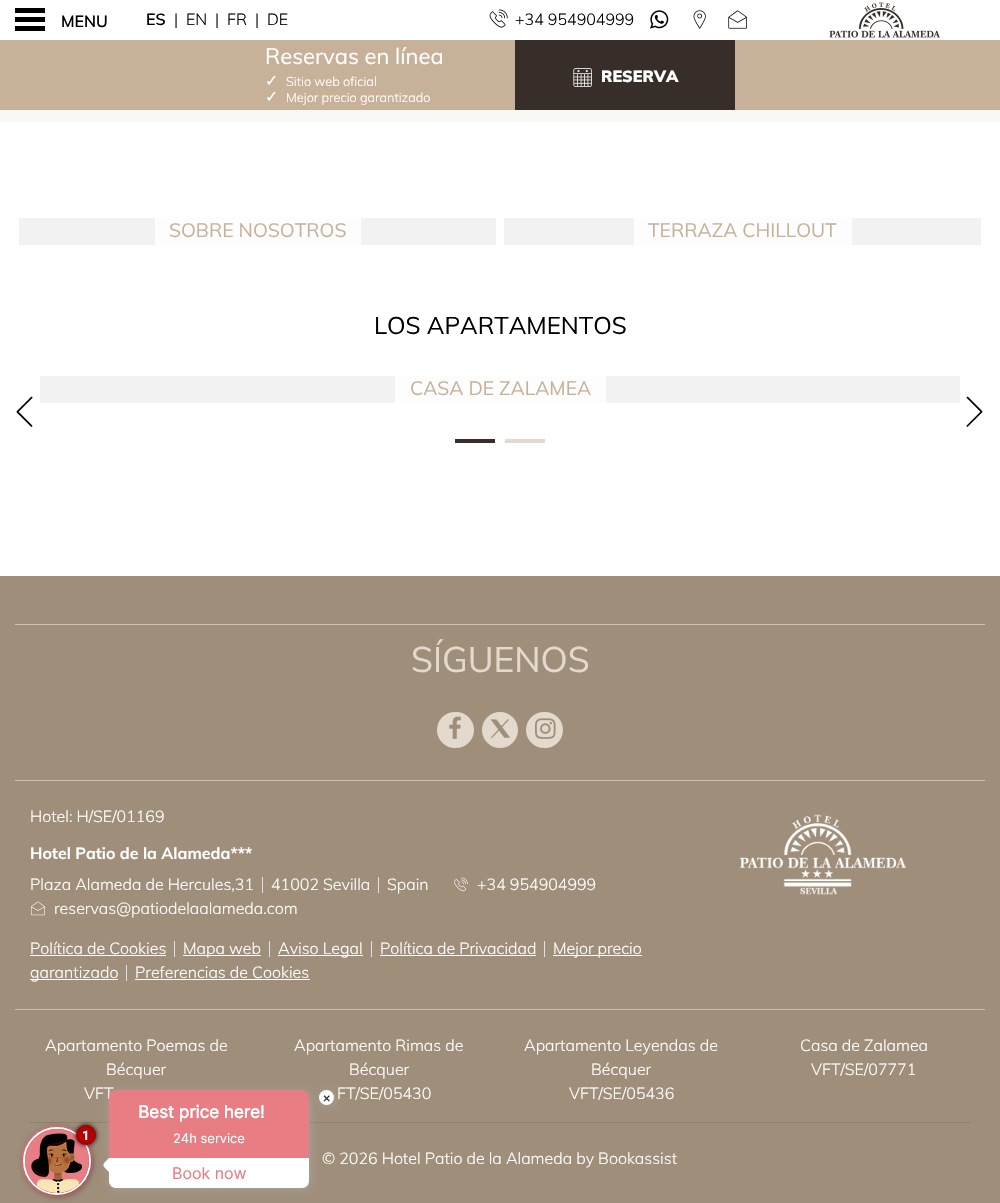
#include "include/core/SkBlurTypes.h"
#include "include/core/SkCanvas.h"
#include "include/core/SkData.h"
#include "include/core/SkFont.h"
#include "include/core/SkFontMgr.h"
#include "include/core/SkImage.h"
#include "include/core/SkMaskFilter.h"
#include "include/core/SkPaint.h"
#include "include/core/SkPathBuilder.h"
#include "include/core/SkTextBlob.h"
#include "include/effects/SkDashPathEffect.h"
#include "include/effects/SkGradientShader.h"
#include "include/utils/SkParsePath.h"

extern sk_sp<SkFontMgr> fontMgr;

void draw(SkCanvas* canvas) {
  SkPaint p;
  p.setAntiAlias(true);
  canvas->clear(SK_ColorWHITE);
  p.setColor(SK_ColorBLACK);
  canvas->drawRect(SkRect::MakeLTRB(15, 17, 45, 22), p);
  canvas->drawRect(SkRect::MakeLTRB(15, 8, 45, 13), p);
  canvas->drawRect(SkRect::MakeLTRB(15, 26, 45, 31), p);
  canvas->drawImageRect(SkImages::DeferredFromEncodedData(SkData::MakeFromFileName("images/1.png")), SkRect::MakeLTRB(489, 9, 508, 28), SkSamplingOptions());
  canvas->drawImageRect(SkImages::DeferredFromEncodedData(SkData::MakeFromFileName("images/2.png")), SkRect::MakeLTRB(650, 10, 669, 29), SkSamplingOptions());
  canvas->drawImageRect(SkImages::DeferredFromEncodedData(SkData::MakeFromFileName("images/3.png")), SkRect::MakeLTRB(693, 10, 706, 29), SkSamplingOptions());
  canvas->drawImageRect(SkImages::DeferredFromEncodedData(SkData::MakeFromFileName("images/4.png")), SkRect::MakeLTRB(728, 10, 747, 29), SkSamplingOptions());
  canvas->drawImageRect(SkImages::DeferredFromEncodedData(SkData::MakeFromFileName("images/5.png")), SkRect::MakeLTRB(829, 2, 940, 38), SkSamplingOptions());
  p.setColor(SkColorSetRGB(199, 178, 153));
  canvas->drawRect(SkRect::MakeLTRB(0, 40, 1000, 110), p);
  p.setColor(SkColorSetRGB(55, 46, 41));
  canvas->drawRect(SkRect::MakeLTRB(515, 40, 735, 110), p);
  canvas->drawImageRect(SkImages::DeferredFromEncodedData(SkData::MakeFromFileName("images/6.png")), SkRect::MakeLTRB(573, 68, 592, 87), SkSamplingOptions());
  p.setColor(SkColorSetRGB(250, 248, 245));
  canvas->drawRect(SkRect::MakeLTRB(0, 110, 1000, 122), p);
  p.setColor(SkColorSetRGB(242, 242, 242));
  canvas->drawRect(SkRect::MakeLTRB(19, 218, 496, 245), p);
  p.setColor(SkColorSetRGB(253, 253, 253));
  canvas->drawRect(SkRect::MakeLTRB(155, 218, 361, 245), p);
  p.setColor(SkColorSetRGB(242, 242, 242));
  canvas->drawRect(SkRect::MakeLTRB(504, 218, 981, 245), p);
  p.setColor(SkColorSetRGB(253, 253, 253));
  canvas->drawRect(SkRect::MakeLTRB(634, 218, 852, 245), p);
  p.setColor(SkColorSetRGB(242, 242, 242));
  canvas->drawRect(SkRect::MakeLTRB(40, 376, 960, 403), p);
  p.setColor(SkColorSetRGB(253, 253, 253));
  canvas->drawRect(SkRect::MakeLTRB(395, 376, 606, 403), p);
  canvas->drawImageRect(SkImages::DeferredFromEncodedData(SkData::MakeFromFileName("images/7.png")), SkRect::MakeLTRB(16, 396, 33, 427), SkSamplingOptions());
  canvas->drawImageRect(SkImages::DeferredFromEncodedData(SkData::MakeFromFileName("images/8.png")), SkRect::MakeLTRB(966, 396, 983, 427), SkSamplingOptions());
  p.setColor(SkColorSetRGB(55, 46, 41));
  canvas->drawRect(SkRect::MakeLTRB(455, 439, 495, 443), p);
  p.setColor(SkColorSetRGB(228, 217, 205));
  canvas->drawRect(SkRect::MakeLTRB(505, 439, 545, 443), p);
  p.setColor(SkColorSetRGB(159, 142, 122));
  canvas->drawRect(SkRect::MakeLTRB(0, 576, 1000, 1203), p);
  p.setColor(SkColorSetRGB(210, 193, 173));
  canvas->drawRect(SkRect::MakeLTRB(15, 624, 985, 625), p);
  p.setColor(SkColorSetRGB(228, 217, 205));
  canvas->drawRoundRect(SkRect::MakeLTRB(437, 712, 474, 748), 18, 18, p);
  canvas->drawImageRect(SkImages::DeferredFromEncodedData(SkData::MakeFromFileName("images/9.png")), SkRect::MakeLTRB(449, 716, 461, 739), SkSamplingOptions());
  canvas->drawCircle(500, 730, 18, p);
  canvas->drawImageRect(SkImages::DeferredFromEncodedData(SkData::MakeFromFileName("images/10.png")), SkRect::MakeLTRB(490, 719, 510, 738), SkSamplingOptions());
  canvas->drawRoundRect(SkRect::MakeLTRB(526, 712, 563, 748), 18, 18, p);
  canvas->drawImageRect(SkImages::DeferredFromEncodedData(SkData::MakeFromFileName("images/11.png")), SkRect::MakeLTRB(535, 718, 556, 739), SkSamplingOptions());
  p.setColor(SkColorSetRGB(210, 193, 173));
  canvas->drawRect(SkRect::MakeLTRB(15, 780, 985, 781), p);
  p.setColor(SkColorSetRGB(222, 226, 230));
  canvas->drawRect(SkRect::MakeLTRB(262, 877, 263, 893), p);
  canvas->drawRect(SkRect::MakeLTRB(378, 877, 379, 893), p);
  canvas->drawImageRect(SkImages::DeferredFromEncodedData(SkData::MakeFromFileName("images/12.png")), SkRect::MakeLTRB(454, 877, 468, 892), SkSamplingOptions());
  canvas->drawImageRect(SkImages::DeferredFromEncodedData(SkData::MakeFromFileName("images/13.png")), SkRect::MakeLTRB(31, 901, 45, 916), SkSamplingOptions());
  p.setColor(SK_ColorWHITE);
  canvas->drawRect(SkRect::MakeLTRB(30, 955, 166, 956), p);
  p.setColor(SkColorSetRGB(222, 226, 230));
  canvas->drawRect(SkRect::MakeLTRB(174, 941, 175, 957), p);
  p.setColor(SK_ColorWHITE);
  canvas->drawRect(SkRect::MakeLTRB(183, 955, 261, 956), p);
  p.setColor(SkColorSetRGB(222, 226, 230));
  canvas->drawRect(SkRect::MakeLTRB(269, 941, 270, 957), p);
  p.setColor(SK_ColorWHITE);
  canvas->drawRect(SkRect::MakeLTRB(278, 955, 363, 956), p);
  p.setColor(SkColorSetRGB(222, 226, 230));
  canvas->drawRect(SkRect::MakeLTRB(371, 941, 372, 957), p);
  p.setColor(SK_ColorWHITE);
  canvas->drawRect(SkRect::MakeLTRB(380, 955, 536, 956), p);
  p.setColor(SkColorSetRGB(222, 226, 230));
  canvas->drawRect(SkRect::MakeLTRB(544, 941, 545, 957), p);
  p.setColor(SK_ColorWHITE);
  canvas->drawRect(SkRect::MakeLTRB(553, 955, 642, 956), p);
  canvas->drawRect(SkRect::MakeLTRB(30, 979, 118, 980), p);
  p.setColor(SkColorSetRGB(222, 226, 230));
  canvas->drawRect(SkRect::MakeLTRB(126, 965, 127, 981), p);
  p.setColor(SK_ColorWHITE);
  canvas->drawRect(SkRect::MakeLTRB(135, 979, 310, 980), p);
  canvas->drawImageRect(SkImages::DeferredFromEncodedData(SkData::MakeFromFileName("images/14.png")), SkRect::MakeLTRB(739, 814, 907, 895), SkSamplingOptions());
  p.setColor(SkColorSetRGB(210, 193, 173));
  canvas->drawRect(SkRect::MakeLTRB(15, 1009, 985, 1010), p);
  p.setColor(SkColorSetRGB(143, 128, 110));
  canvas->drawRect(SkRect::MakeLTRB(30, 1122, 970, 1123), p);
  p.setStyle(SkPaint::kStroke_Style);
  p.setStrokeWidth(2);
  p.setColor(SkColorSetRGB(232, 125, 131));
  canvas->drawCircle(57, 1161, 35, p);
  p.setStyle(SkPaint::kFill_Style);
  p.setColor(SkColorSetRGB(170, 170, 170));
  p.setMaskFilter(SkMaskFilter::MakeBlur(kNormal_SkBlurStyle, 5));
  canvas->drawRoundRect(SkRect::MakeLTRB(111, 1092, 309, 1188), 7, 7, p);
  p.setMaskFilter(nullptr);
  SkFont font1(fontMgr->matchFamilyStyle("Muli", SkFontStyle(600, SkFontStyle::kNormal_Width, SkFontStyle::kUpright_Slant)), 16);
  font1.setSubpixel(true);
  p.setColor(SK_ColorBLACK);
  canvas->drawString("MENU", 61, 27, font1, p);
  canvas->drawString("ES", 146, 25, font1, p);
  SkFont font2(fontMgr->matchFamilyStyle("Muli", SkFontStyle(300, SkFontStyle::kNormal_Width, SkFontStyle::kUpright_Slant)), 16);
  font2.setSubpixel(true);
  canvas->drawString("|", 174, 25, font2, p);
  canvas->drawString("EN", 186, 25, font2, p);
  canvas->drawString("|", 215, 25, font2, p);
  canvas->drawString("FR", 227, 25, font2, p);
  canvas->drawString("|", 255, 25, font2, p);
  canvas->drawString("DE", 267, 25, font2, p);
  canvas->drawString("+34 954904999", 515, 25, font2, p);
  SkFont font3(fontMgr->matchFamilyStyle("Muli", SkFontStyle::Normal()), 22);
  font3.setSubpixel(true);
  p.setColor(SK_ColorWHITE);
  canvas->drawString("Reservas en línea", 265, 64, font3, p);
  SkFont font4(fontMgr->matchFamilyStyle("DejaVu Sans", SkFontStyle::Normal()), 16);
  font4.setSubpixel(true);
  canvas->drawString("✓", 265, 86, font4, p);
  SkFont font5(fontMgr->matchFamilyStyle("Muli", SkFontStyle(300, SkFontStyle::kNormal_Width, SkFontStyle::kUpright_Slant)), 12.75f);
  font5.setSubpixel(true);
  canvas->drawString("Sitio web oficial", 286, 86, font5, p);
  canvas->drawString("✓", 265, 102, font4, p);
  canvas->drawString("Mejor precio garantizado", 286, 102, font5, p);
  SkFont font6(fontMgr->matchFamilyStyle("Muli", SkFontStyle(900, SkFontStyle::kNormal_Width, SkFontStyle::kUpright_Slant)), 16);
  font6.setSubpixel(true);
  canvas->drawString("RESERVA", 601, 82, font6, p);
  SkFont font7(fontMgr->matchFamilyStyle("Muli", SkFontStyle::Normal()), 19.25f);
  font7.setSubpixel(true);
  p.setColor(SkColorSetRGB(199, 178, 153));
  canvas->drawString("SOBRE NOSOTROS", 169, 237, font7, p);
  canvas->drawString("TERRAZA CHILLOUT", 648, 237, font7, p);
  SkFont font8(fontMgr->matchFamilyStyle("Muli", SkFontStyle::Normal()), 24);
  font8.setSubpixel(true);
  p.setColor(SK_ColorBLACK);
  canvas->drawString("LOS APARTAMENTOS", 374, 334, font8, p);
  p.setColor(SkColorSetRGB(199, 178, 153));
  canvas->drawString("CASA DE ZALAMEA", 410, 395, font7, p);
  SkFont font9(fontMgr->matchFamilyStyle("Muli", SkFontStyle::Normal()), 35.25f);
  font9.setSubpixel(true);
  p.setColor(SkColorSetRGB(228, 217, 205));
  canvas->drawString("SÍGUENOS", 411, 672, font9, p);
  p.setColor(SK_ColorWHITE);
  canvas->drawString("Hotel: H/SE/01169", 30, 822, font2, p);
  SkFont font10(fontMgr->matchFamilyStyle("Muli", SkFontStyle::Bold()), 16);
  font10.setSubpixel(true);
  canvas->drawString("Hotel Patio de la Alameda***", 30, 859, font10, p);
  canvas->drawString("Plaza Alameda de Hercules,31", 30, 890, font2, p);
  canvas->drawString("41002 Sevilla", 271, 890, font2, p);
  canvas->drawString("Spain", 387, 890, font2, p);
  canvas->drawString("+34 954904999", 477, 890, font2, p);
  canvas->drawString("reservas@patiodelaalameda.com", 54, 914, font2, p);
  canvas->drawString("Política de Cookies", 30, 954, font2, p);
  canvas->drawString("Mapa web", 183, 954, font2, p);
  canvas->drawString("Aviso Legal", 278, 954, font2, p);
  canvas->drawString("Política de Privacidad", 380, 954, font2, p);
  canvas->drawString("Mejor precio", 553, 954, font2, p);
  canvas->drawString("garantizado", 30, 978, font2, p);
  canvas->drawString("Preferencias de Cookies", 135, 978, font2, p);
  canvas->drawString("Apartamento Poemas de", 45, 1051, font2, p);
  canvas->drawString("Bécquer", 106, 1075, font2, p);
  canvas->drawString("VFT", 84, 1099, font2, p);
  canvas->drawString("Apartamento Rimas de", 294, 1051, font2, p);
  canvas->drawString("Bécquer", 349, 1075, font2, p);
  canvas->drawString("FT/SE/05430", 337, 1099, font2, p);
  canvas->drawString("Apartamento Leyendas de", 524, 1051, font2, p);
  canvas->drawString("Bécquer", 591, 1075, font2, p);
  canvas->drawString("VFT/SE/05436", 569, 1099, font2, p);
  canvas->drawString("Casa de Zalamea", 800, 1051, font2, p);
  canvas->drawString("VFT/SE/07771", 811, 1075, font2, p);
  canvas->drawString("© 2026 Hotel Patio de la Alameda by Bookassist", 322, 1164, font2, p);
  p.setColor(SkColorSetRGB(232, 125, 131));
  canvas->drawRoundRect(SkRect::MakeLTRB(109, 1090, 309, 1188), 8, 8, p);
  p.setColor(SkColorSetRGB(170, 170, 170));
  p.setMaskFilter(SkMaskFilter::MakeBlur(kNormal_SkBlurStyle, 5));
  canvas->drawRoundRect(SkRect::MakeLTRB(321, 1092, 334, 1105), 6.5f, 6.5f, p);
  p.setMaskFilter(nullptr);
  p.setColor(SK_ColorWHITE);
  canvas->drawCircle(326.5f, 1097.5f, 7.5f, p);
  SkFont font11(fontMgr->matchFamilyStyle("Roboto", SkFontStyle::Normal()), 14);
  font11.setSubpixel(true);
  p.setColor(SkColorSetRGB(51, 51, 51));
  canvas->drawString("×", 323, 1103, font11, p);
  SkFont font12(fontMgr->matchFamilyStyle("Inter", SkFontStyle::Bold()), 17);
  font12.setSubpixel(true);
  p.setColor(SK_ColorWHITE);
  canvas->drawString("Best price here!", 138, 1118, font12, p);
  SkFont font13(fontMgr->matchFamilyStyle("Inter", SkFontStyle::Normal()), 13);
  font13.setSubpixel(true);
  canvas->drawString("24h service", 173, 1143, font13, p);
  canvas->drawPath(SkPathBuilder().moveTo(109, 1158).lineTo(309, 1158).lineTo(309, 1181).cubicTo(309, 1185, 306, 1188, 302, 1188).lineTo(116, 1188).cubicTo(112, 1188, 109, 1185, 109, 1181).close().detach(), p);
  canvas->drawPath(SkPathBuilder().moveTo(109, 1172).cubicTo(101.5f, 1164.5f, 101.5f, 1165.5f, 109, 1158).lineTo(116, 1165).close().detach(), p);
  p.setColor(SK_ColorBLACK);
  p.setMaskFilter(SkMaskFilter::MakeBlur(kNormal_SkBlurStyle, 5));
  canvas->drawRoundRect(SkRect::MakeLTRB(27, 1131, 89, 1193), 31, 31, p);
  p.setMaskFilter(nullptr);
  p.setStyle(SkPaint::kStroke_Style);
  p.setColor(SK_ColorWHITE);
  canvas->drawCircle(57, 1161, 33, p);
  p.setStyle(SkPaint::kFill_Style);
  p.setColor(SkColorSetRGB(232, 125, 131));
  canvas->drawCircle(57, 1161, 32, p);
  canvas->drawImageRect(SkImages::DeferredFromEncodedData(SkData::MakeFromFileName("images/15.png")), SkRect::MakeLTRB(31, 1133, 82, 1193), SkSamplingOptions());
  p.setColor(SK_ColorBLACK);
  p.setMaskFilter(SkMaskFilter::MakeBlur(kNormal_SkBlurStyle, 2.5f));
  canvas->drawRoundRect(SkRect::MakeLTRB(76, 1125, 96, 1145), 10, 10, p);
  p.setMaskFilter(nullptr);
  p.setColor(SkColorSetRGB(182, 0, 0));
  canvas->drawCircle(86, 1135, 9, p);
  p.setStyle(SkPaint::kStroke_Style);
  p.setColor(SkColorSetRGB(163, 0, 0));
  canvas->drawCircle(86, 1135, 9, p);
  SkFont font14(fontMgr->matchFamilyStyle("Roboto", SkFontStyle::Bold()), 13);
  font14.setSubpixel(true);
  p.setStyle(SkPaint::kFill_Style);
  p.setColor(SK_ColorWHITE);
  canvas->drawString("1", 82, 1140, font14, p);
  SkFont font15(fontMgr->matchFamilyStyle("Inter", SkFontStyle::Normal()), 16);
  font15.setSubpixel(true);
  p.setColor(SkColorSetRGB(232, 125, 131));
  canvas->drawString("Book now", 172, 1179, font15, p);
}
